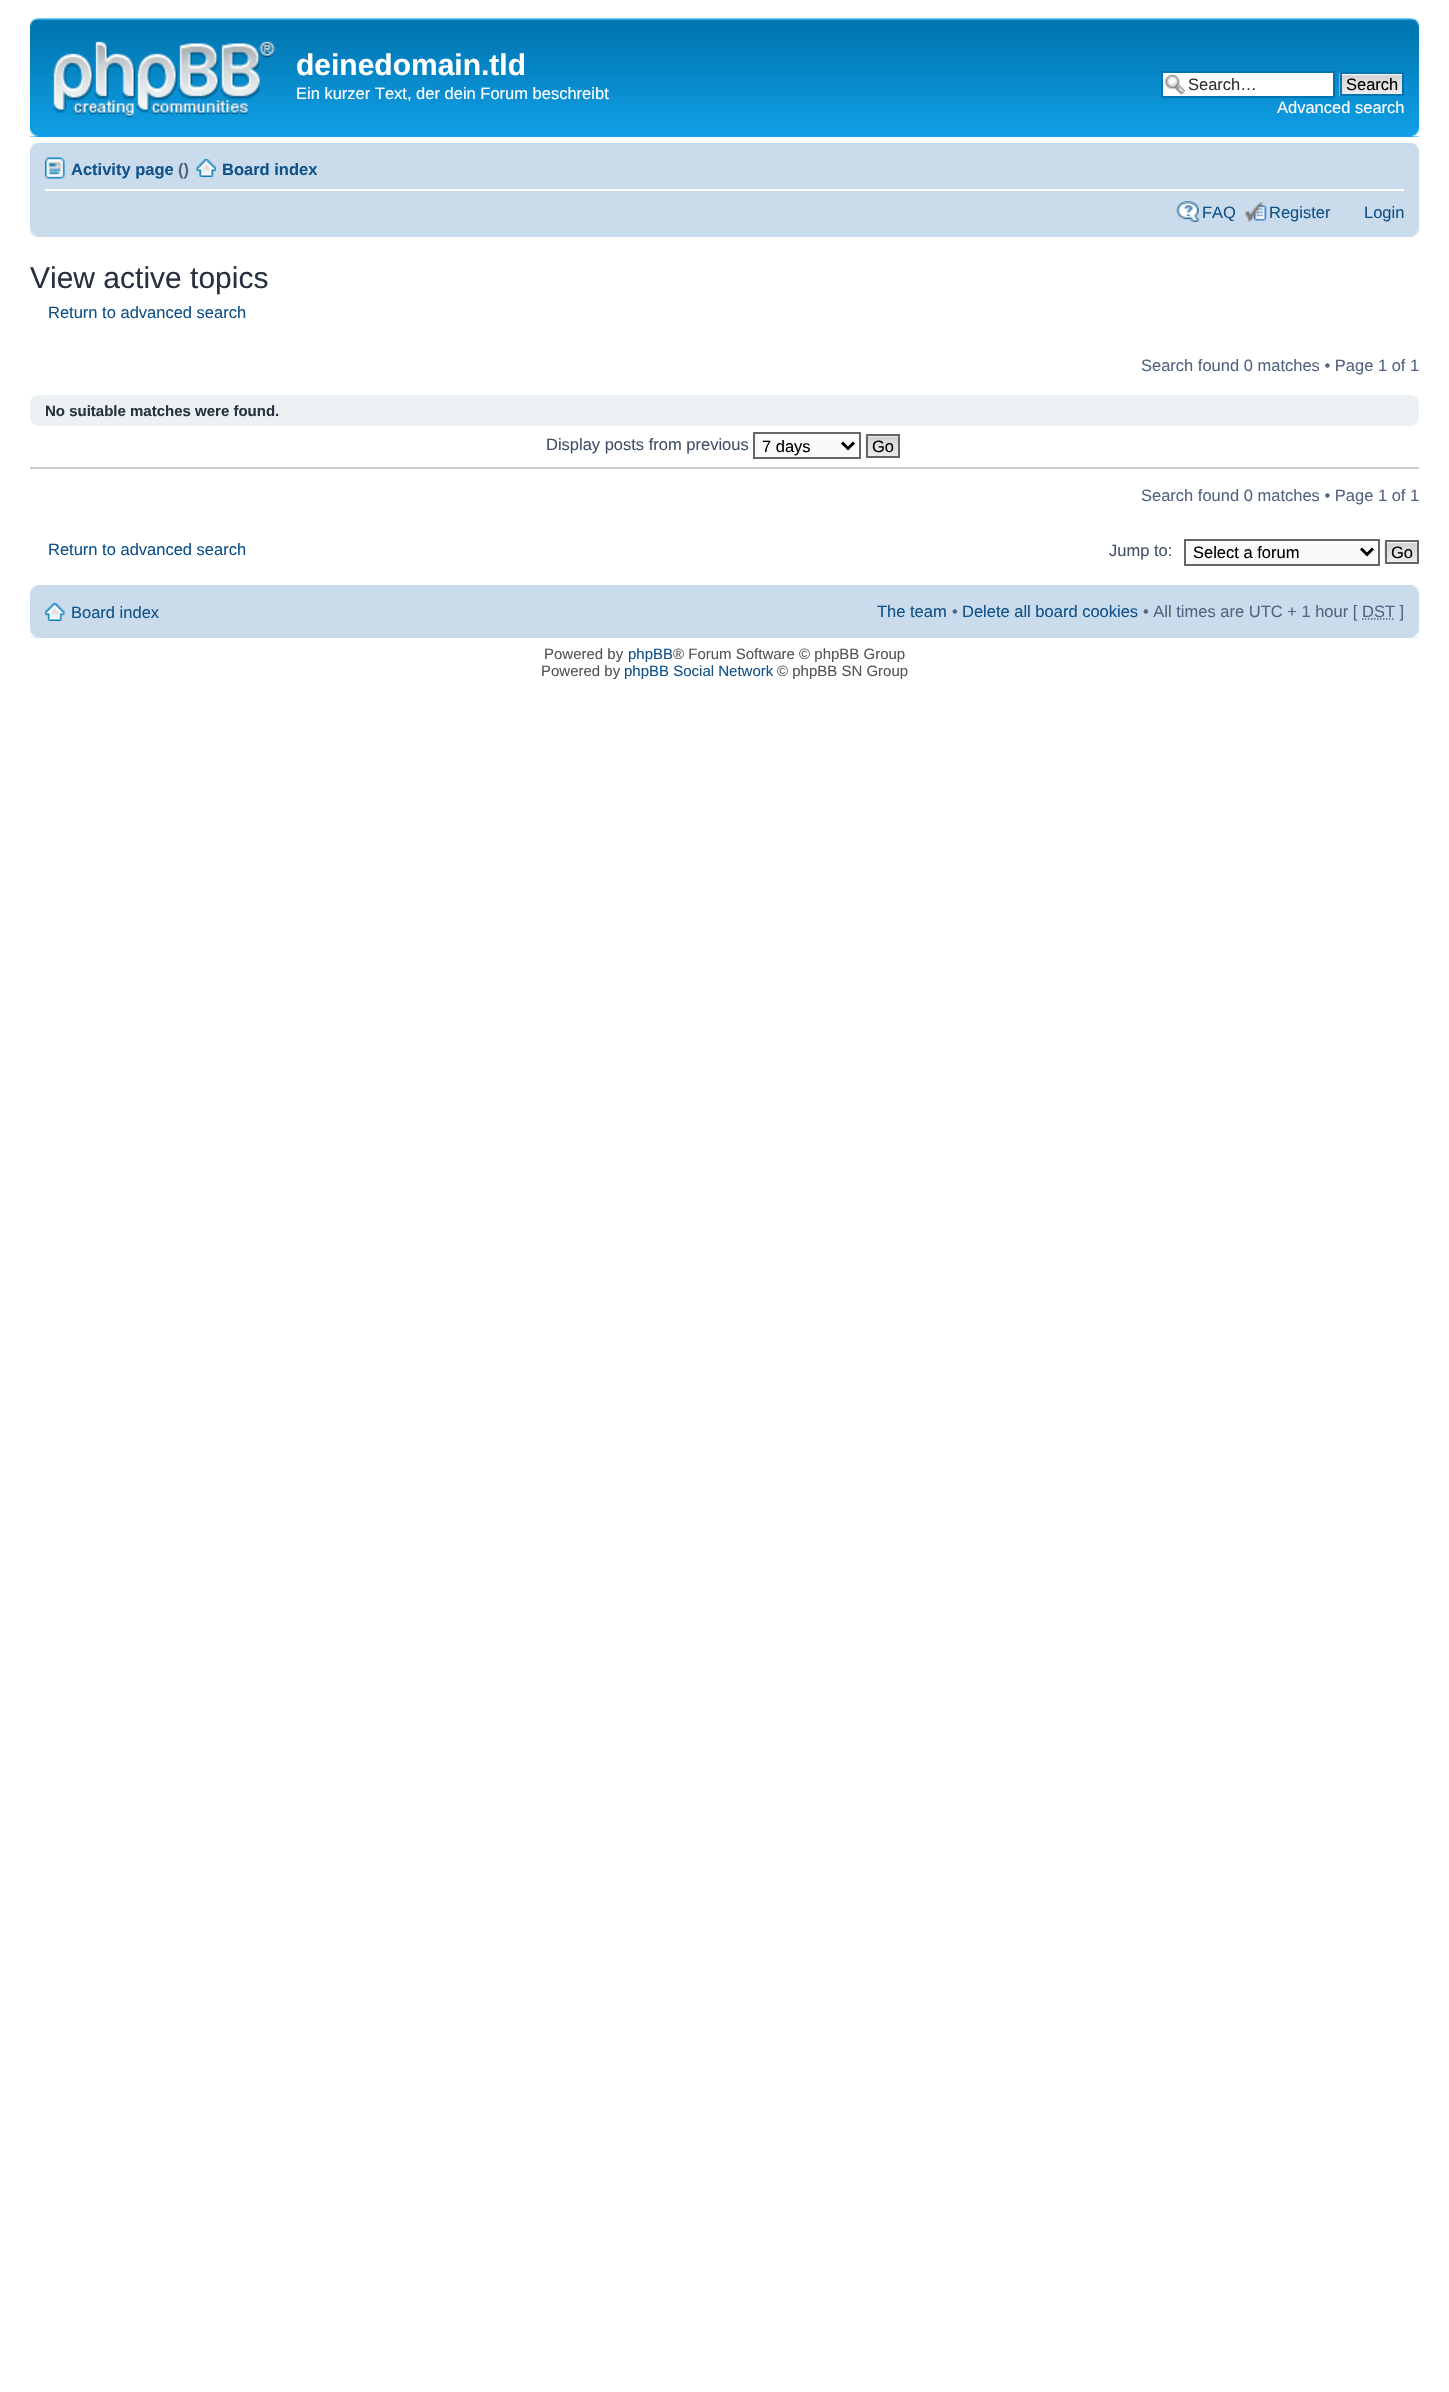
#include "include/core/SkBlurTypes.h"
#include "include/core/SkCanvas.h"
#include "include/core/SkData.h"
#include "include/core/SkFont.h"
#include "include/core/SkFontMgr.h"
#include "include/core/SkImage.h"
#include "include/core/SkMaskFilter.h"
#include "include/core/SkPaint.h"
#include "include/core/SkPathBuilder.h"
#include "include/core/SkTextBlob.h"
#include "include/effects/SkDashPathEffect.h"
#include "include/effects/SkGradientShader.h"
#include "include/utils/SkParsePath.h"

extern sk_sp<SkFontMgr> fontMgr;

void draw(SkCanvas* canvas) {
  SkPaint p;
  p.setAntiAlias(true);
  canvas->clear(SK_ColorWHITE);
  p.setColor(SkColorSetRGB(18, 163, 235));
  canvas->drawRect(SkRect::MakeLTRB(30, 136, 1419, 137), p);
  canvas->drawImageRect(SkImages::DeferredFromEncodedData(SkData::MakeFromFileName("images/1.png")), SkRect::MakeLTRB(30, 18, 1419, 136), SkSamplingOptions());
  canvas->drawImageRect(SkImages::DeferredFromEncodedData(SkData::MakeFromFileName("images/2.png")), SkRect::MakeLTRB(30, 18, 38, 26), SkSamplingOptions());
  canvas->drawImageRect(SkImages::DeferredFromEncodedData(SkData::MakeFromFileName("images/3.png")), SkRect::MakeLTRB(1411, 18, 1419, 26), SkSamplingOptions());
  canvas->drawImageRect(SkImages::DeferredFromEncodedData(SkData::MakeFromFileName("images/4.png")), SkRect::MakeLTRB(53, 41, 275, 118), SkSamplingOptions());
  p.setColor(SK_ColorWHITE);
  canvas->drawRect(SkRect::MakeLTRB(1163, 73, 1333, 96), p);
  canvas->drawImageRect(SkImages::DeferredFromEncodedData(SkData::MakeFromFileName("images/5.png")), SkRect::MakeLTRB(1165, 74, 1186, 95), SkSamplingOptions());
  p.setStyle(SkPaint::kStroke_Style);
  p.setStrokeWidth(2);
  p.setColor(SkColorSetRGB(0, 117, 176));
  canvas->drawRect(SkRect::MakeLTRB(1162, 72, 1334, 97), p);
  canvas->drawImageRect(SkImages::DeferredFromEncodedData(SkData::MakeFromFileName("images/6.png")), SkRect::MakeLTRB(1339, 73, 1402, 96), SkSamplingOptions());
  canvas->drawRect(SkRect::MakeLTRB(1341, 73, 1403, 95), p);
  canvas->drawImageRect(SkImages::DeferredFromEncodedData(SkData::MakeFromFileName("images/7.png")), SkRect::MakeLTRB(30, 129, 38, 137), SkSamplingOptions());
  canvas->drawImageRect(SkImages::DeferredFromEncodedData(SkData::MakeFromFileName("images/8.png")), SkRect::MakeLTRB(1411, 129, 1419, 137), SkSamplingOptions());
  p.setStyle(SkPaint::kFill_Style);
  p.setColor(SkColorSetRGB(202, 220, 235));
  canvas->drawRect(SkRect::MakeLTRB(30, 143, 1419, 237), p);
  canvas->drawImageRect(SkImages::DeferredFromEncodedData(SkData::MakeFromFileName("images/9.png")), SkRect::MakeLTRB(30, 143, 38, 150), SkSamplingOptions());
  canvas->drawImageRect(SkImages::DeferredFromEncodedData(SkData::MakeFromFileName("images/10.png")), SkRect::MakeLTRB(1411, 143, 1419, 150), SkSamplingOptions());
  p.setColor(SK_ColorWHITE);
  canvas->drawRect(SkRect::MakeLTRB(45, 189, 1404, 191), p);
  canvas->drawImageRect(SkImages::DeferredFromEncodedData(SkData::MakeFromFileName("images/11.png")), SkRect::MakeLTRB(45, 157, 65, 179), SkSamplingOptions());
  canvas->drawImageRect(SkImages::DeferredFromEncodedData(SkData::MakeFromFileName("images/12.png")), SkRect::MakeLTRB(196, 159, 216, 177), SkSamplingOptions());
  canvas->drawImageRect(SkImages::DeferredFromEncodedData(SkData::MakeFromFileName("images/13.png")), SkRect::MakeLTRB(1176, 201, 1200, 222), SkSamplingOptions());
  canvas->drawImageRect(SkImages::DeferredFromEncodedData(SkData::MakeFromFileName("images/14.png")), SkRect::MakeLTRB(1244, 202, 1267, 222), SkSamplingOptions());
  canvas->drawImageRect(SkImages::DeferredFromEncodedData(SkData::MakeFromFileName("images/15.png")), SkRect::MakeLTRB(30, 229, 38, 237), SkSamplingOptions());
  canvas->drawImageRect(SkImages::DeferredFromEncodedData(SkData::MakeFromFileName("images/16.png")), SkRect::MakeLTRB(1411, 229, 1419, 237), SkSamplingOptions());
  p.setColor(SkColorSetRGB(236, 241, 243));
  canvas->drawRect(SkRect::MakeLTRB(30, 395, 1419, 426), p);
  canvas->drawImageRect(SkImages::DeferredFromEncodedData(SkData::MakeFromFileName("images/17.png")), SkRect::MakeLTRB(30, 395, 37, 402), SkSamplingOptions());
  canvas->drawImageRect(SkImages::DeferredFromEncodedData(SkData::MakeFromFileName("images/18.png")), SkRect::MakeLTRB(1412, 395, 1419, 402), SkSamplingOptions());
  canvas->drawImageRect(SkImages::DeferredFromEncodedData(SkData::MakeFromFileName("images/19.png")), SkRect::MakeLTRB(30, 419, 37, 426), SkSamplingOptions());
  canvas->drawImageRect(SkImages::DeferredFromEncodedData(SkData::MakeFromFileName("images/20.png")), SkRect::MakeLTRB(1412, 419, 1419, 426), SkSamplingOptions());
  p.setColor(SkColorSetRGB(250, 250, 250));
  canvas->drawRect(SkRect::MakeLTRB(754, 433, 860, 458), p);
  p.setStyle(SkPaint::kStroke_Style);
  p.setColor(SkColorSetRGB(102, 102, 102));
  canvas->drawRect(SkRect::MakeLTRB(754, 433, 860, 458), p);
  p.setStrokeWidth(3);
  p.setColor(SK_ColorBLACK);
  canvas->drawPath(SkPathBuilder().moveTo(842, 442.5f).lineTo(848, 448.5f).lineTo(854, 442.5f).detach(), p);
  canvas->drawImageRect(SkImages::DeferredFromEncodedData(SkData::MakeFromFileName("images/21.png")), SkRect::MakeLTRB(865, 435, 898, 458), SkSamplingOptions());
  p.setStrokeWidth(2);
  p.setColor(SkColorSetRGB(102, 102, 102));
  canvas->drawRect(SkRect::MakeLTRB(867, 435, 899, 457), p);
  p.setStyle(SkPaint::kFill_Style);
  p.setColor(SkColorSetRGB(204, 204, 204));
  canvas->drawRect(SkRect::MakeLTRB(30, 467, 1419, 469), p);
  p.setColor(SkColorSetRGB(250, 250, 250));
  canvas->drawRect(SkRect::MakeLTRB(1185, 540, 1379, 565), p);
  p.setStyle(SkPaint::kStroke_Style);
  p.setColor(SkColorSetRGB(102, 102, 102));
  canvas->drawRect(SkRect::MakeLTRB(1185, 540, 1379, 565), p);
  p.setStrokeWidth(3);
  p.setColor(SK_ColorBLACK);
  canvas->drawPath(SkPathBuilder().moveTo(1361, 548.5f).lineTo(1367, 554.5f).lineTo(1373, 548.5f).detach(), p);
  canvas->drawImageRect(SkImages::DeferredFromEncodedData(SkData::MakeFromFileName("images/22.png")), SkRect::MakeLTRB(1384, 542, 1417, 564), SkSamplingOptions());
  p.setStrokeWidth(2);
  p.setColor(SkColorSetRGB(102, 102, 102));
  canvas->drawRect(SkRect::MakeLTRB(1386, 541, 1418, 563), p);
  p.setStyle(SkPaint::kFill_Style);
  p.setColor(SkColorSetRGB(202, 220, 235));
  canvas->drawRect(SkRect::MakeLTRB(30, 585, 1419, 638), p);
  canvas->drawImageRect(SkImages::DeferredFromEncodedData(SkData::MakeFromFileName("images/23.png")), SkRect::MakeLTRB(30, 585, 38, 593), SkSamplingOptions());
  canvas->drawImageRect(SkImages::DeferredFromEncodedData(SkData::MakeFromFileName("images/24.png")), SkRect::MakeLTRB(1411, 585, 1419, 593), SkSamplingOptions());
  canvas->drawImageRect(SkImages::DeferredFromEncodedData(SkData::MakeFromFileName("images/25.png")), SkRect::MakeLTRB(45, 603, 65, 621), SkSamplingOptions());
  p.setStyle(SkPaint::kStroke_Style);
  p.setStrokeWidth(1.5f);
  p.setColor(SkColorSetRGB(83, 100, 130));
  p.setPathEffect(SkDashPathEffect::Make({{1.5f, 1.5f}}, 0));
  canvas->drawPath(SkPathBuilder().moveTo(1362, 619).lineTo(1395, 619).detach(), p);
  p.setPathEffect(nullptr);
  canvas->drawImageRect(SkImages::DeferredFromEncodedData(SkData::MakeFromFileName("images/26.png")), SkRect::MakeLTRB(30, 630, 38, 638), SkSamplingOptions());
  canvas->drawImageRect(SkImages::DeferredFromEncodedData(SkData::MakeFromFileName("images/27.png")), SkRect::MakeLTRB(1411, 630, 1419, 638), SkSamplingOptions());
  SkFont font1(fontMgr->matchFamilyStyle("Liberation Sans", SkFontStyle::Bold()), 30);
  font1.setSubpixel(true);
  p.setStyle(SkPaint::kFill_Style);
  p.setColor(SK_ColorWHITE);
  canvas->drawString("deinedomain.tld", 296, 75, font1, p);
  SkFont font2(fontMgr->matchFamilyStyle("Liberation Sans", SkFontStyle::Normal()), 16.5f);
  font2.setSubpixel(true);
  canvas->drawString("Ein kurzer Text, der dein Forum beschreibt", 296, 99, font2, p);
  p.setColor(SkColorSetRGB(51, 51, 51));
  canvas->drawString("Search…", 1188, 90, font2, p);
  p.setColor(SK_ColorBLACK);
  canvas->drawString("Search", 1346, 90, font2, p);
  p.setColor(SK_ColorWHITE);
  canvas->drawString("Advanced search", 1277, 113, font2, p);
  SkFont font3(fontMgr->matchFamilyStyle("Liberation Sans", SkFontStyle::Bold()), 16.5f);
  font3.setSubpixel(true);
  p.setColor(SkColorSetRGB(16, 82, 137));
  canvas->drawString("Activity page", 71, 175, font3, p);
  p.setColor(SkColorSetRGB(83, 100, 130));
  canvas->drawString("()", 178, 175, font3, p);
  p.setColor(SkColorSetRGB(16, 82, 137));
  canvas->drawString("Board index", 222, 175, font3, p);
  canvas->drawString("FAQ", 1202, 218, font2, p);
  canvas->drawString("Register", 1269, 218, font2, p);
  canvas->drawString("Login", 1364, 218, font2, p);
  SkFont font4(fontMgr->matchFamilyStyle("Liberation Sans", SkFontStyle::Normal()), 30);
  font4.setSubpixel(true);
  p.setColor(SkColorSetRGB(40, 49, 63));
  canvas->drawString("View active topics", 30, 288, font4, p);
  p.setColor(SkColorSetRGB(16, 82, 137));
  canvas->drawString("Return to advanced search", 48, 318, font2, p);
  p.setColor(SkColorSetRGB(83, 100, 130));
  canvas->drawString("Search found 0 matches • Page 1 of 1", 1141, 371, font2, p);
  SkFont font5(fontMgr->matchFamilyStyle("Liberation Sans", SkFontStyle::Bold()), 15);
  font5.setSubpixel(true);
  p.setColor(SkColorSetRGB(40, 49, 63));
  canvas->drawString("No suitable matches were found.", 45, 416, font5, p);
  p.setColor(SkColorSetRGB(66, 80, 103));
  canvas->drawString("Display posts from previous", 546, 450, font2, p);
  p.setColor(SK_ColorBLACK);
  canvas->drawString("7 days", 762, 452, font2, p);
  canvas->drawString("Go", 872, 452, font2, p);
  p.setColor(SkColorSetRGB(83, 100, 130));
  canvas->drawString("Search found 0 matches • Page 1 of 1", 1141, 501, font2, p);
  p.setColor(SkColorSetRGB(16, 82, 137));
  canvas->drawString("Return to advanced search", 48, 555, font2, p);
  p.setColor(SkColorSetRGB(66, 80, 103));
  canvas->drawString("Jump to:", 1109, 556, font2, p);
  p.setColor(SK_ColorBLACK);
  canvas->drawString("Select a forum", 1193, 558, font2, p);
  canvas->drawString("Go", 1391, 558, font2, p);
  p.setColor(SkColorSetRGB(16, 82, 137));
  canvas->drawString("Board index", 71, 618, font2, p);
  canvas->drawString("The team", 877, 617, font2, p);
  p.setColor(SkColorSetRGB(83, 100, 130));
  canvas->drawString("•", 952, 617, font2, p);
  p.setColor(SkColorSetRGB(16, 82, 137));
  canvas->drawString("Delete all board cookies", 962, 617, font2, p);
  p.setColor(SkColorSetRGB(83, 100, 130));
  canvas->drawString("• All times are UTC + 1 hour [ DST ]", 1143, 617, font2, p);
  SkFont font6(fontMgr->matchFamilyStyle("Liberation Sans", SkFontStyle::Normal()), 15);
  font6.setSubpixel(true);
  p.setColor(SkColorSetRGB(85, 85, 85));
  canvas->drawString("Powered by", 544, 659, font6, p);
  p.setColor(SkColorSetRGB(16, 82, 137));
  canvas->drawString("phpBB", 628, 659, font6, p);
  p.setColor(SkColorSetRGB(85, 85, 85));
  canvas->drawString("® Forum Software © phpBB Group", 673, 659, font6, p);
  canvas->drawString("Powered by", 541, 676, font6, p);
  p.setColor(SkColorSetRGB(16, 82, 137));
  canvas->drawString("phpBB Social Network", 624, 676, font6, p);
  p.setColor(SkColorSetRGB(85, 85, 85));
  canvas->drawString("© phpBB SN Group", 777, 676, font6, p);
}
